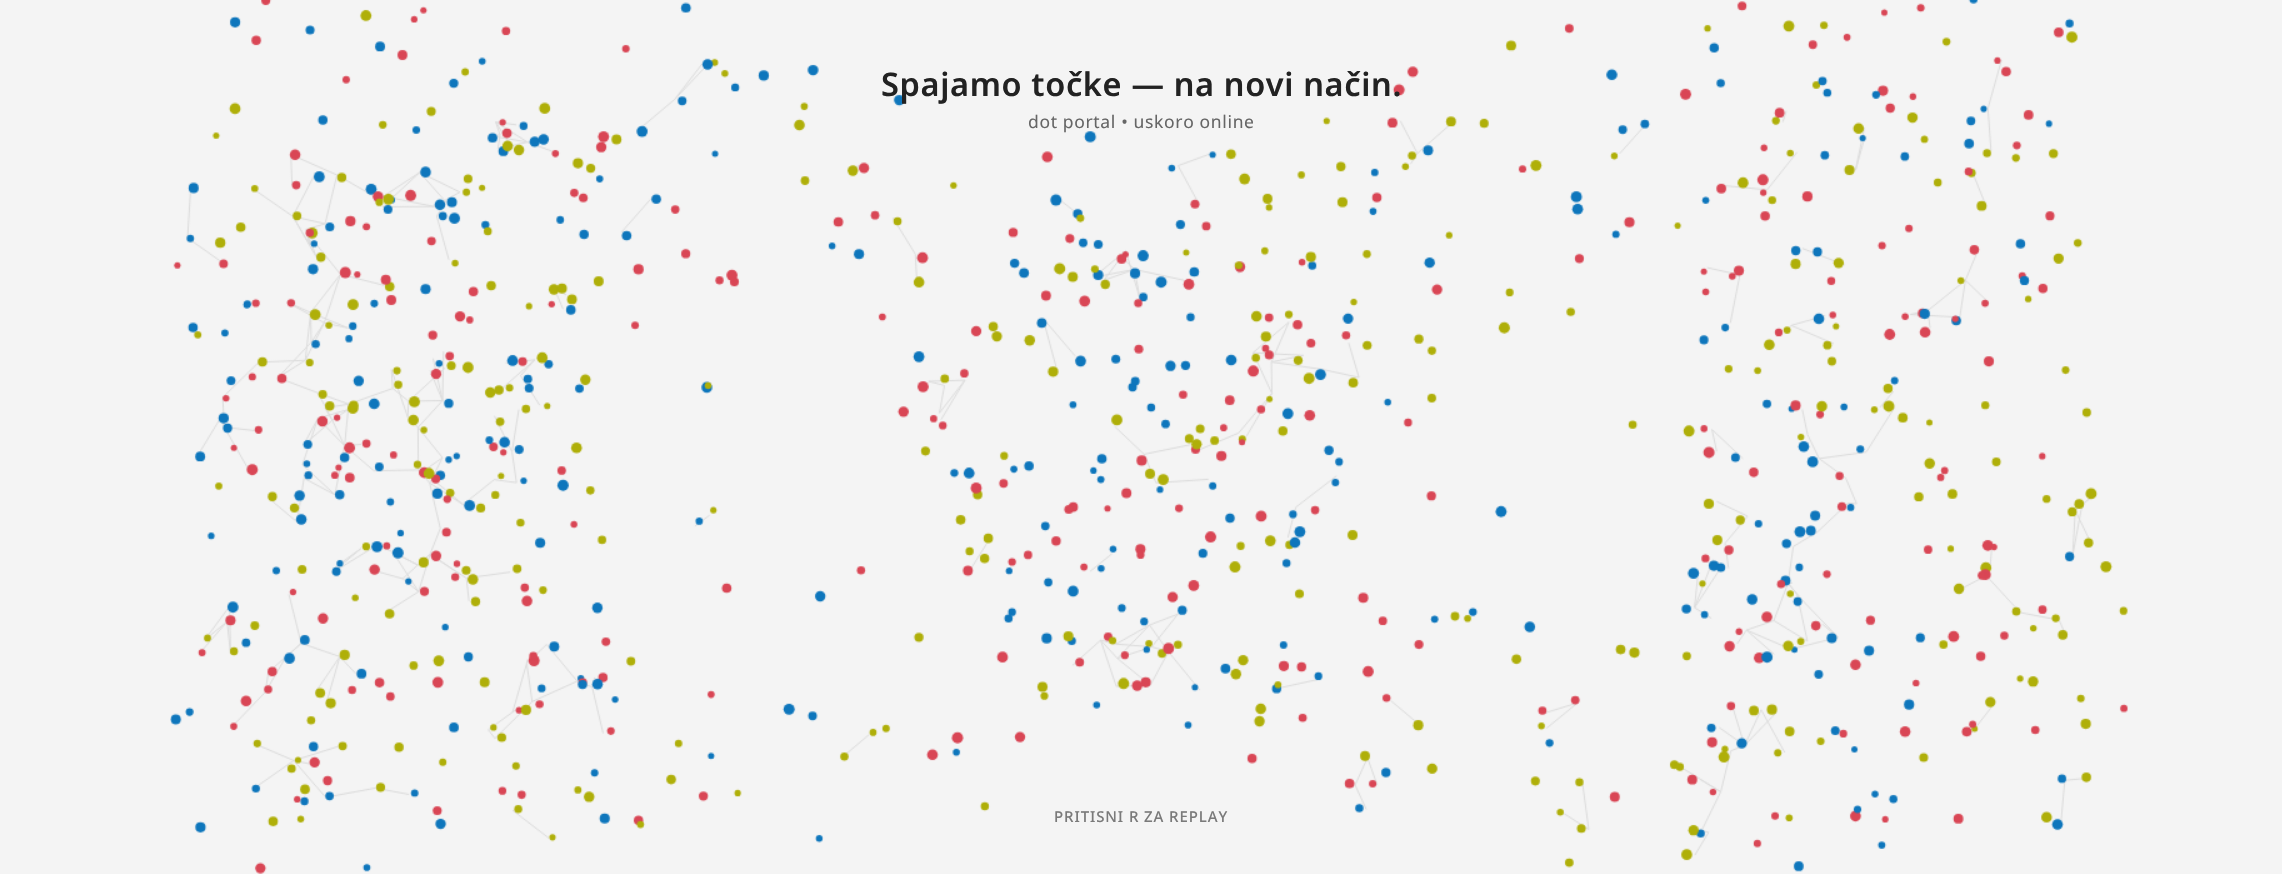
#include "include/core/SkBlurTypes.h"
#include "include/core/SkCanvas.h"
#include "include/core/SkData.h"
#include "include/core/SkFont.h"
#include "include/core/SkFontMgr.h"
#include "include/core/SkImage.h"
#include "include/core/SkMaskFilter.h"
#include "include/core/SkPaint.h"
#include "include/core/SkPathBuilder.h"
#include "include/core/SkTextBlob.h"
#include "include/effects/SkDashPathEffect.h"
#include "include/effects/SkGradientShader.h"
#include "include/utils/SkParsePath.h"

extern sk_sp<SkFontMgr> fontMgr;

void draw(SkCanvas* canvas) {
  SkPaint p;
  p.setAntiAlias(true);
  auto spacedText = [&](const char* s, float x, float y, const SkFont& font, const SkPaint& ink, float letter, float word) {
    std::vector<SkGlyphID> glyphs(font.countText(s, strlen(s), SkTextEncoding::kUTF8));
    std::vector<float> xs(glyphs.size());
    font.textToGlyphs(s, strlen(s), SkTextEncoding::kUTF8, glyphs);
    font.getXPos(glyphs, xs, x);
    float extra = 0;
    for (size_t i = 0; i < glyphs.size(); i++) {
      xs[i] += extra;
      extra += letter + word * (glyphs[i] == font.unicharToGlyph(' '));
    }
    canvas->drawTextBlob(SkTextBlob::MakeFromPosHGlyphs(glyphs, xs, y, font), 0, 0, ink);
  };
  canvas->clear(SkColorSetRGB(244, 244, 244));
  canvas->drawImageRect(SkImages::DeferredFromEncodedData(SkData::MakeFromFileName("images/1.png")), SkRect::MakeLTRB(170, 0, 2128, 874), SkSamplingOptions());
  SkFont font1(fontMgr->matchFamilyStyle("Noto Sans", SkFontStyle(600, SkFontStyle::kNormal_Width, SkFontStyle::kUpright_Slant)), 32.5f);
  font1.setSubpixel(true);
  p.setColor(SkColorSetRGB(34, 34, 34));
  spacedText("Spajamo točke — na novi način.", 881, 96, font1, p, 0.65f, 0);
  SkFont font2(fontMgr->matchFamilyStyle("Noto Sans", SkFontStyle::Normal()), 17.5f);
  font2.setSubpixel(true);
  p.setColor(SkColorSetRGB(102, 102, 102));
  spacedText("dot portal • uskoro online", 1028, 128, font2, p, 0.65f, 0);
  SkFont font3(fontMgr->matchFamilyStyle("Noto Sans", SkFontStyle(500, SkFontStyle::kNormal_Width, SkFontStyle::kUpright_Slant)), 15);
  font3.setSubpixel(true);
  p.setColor(SkColorSetRGB(122, 122, 122));
  spacedText("PRITISNI R ZA REPLAY", 1054, 822, font3, p, 0.9f, 0);
}
